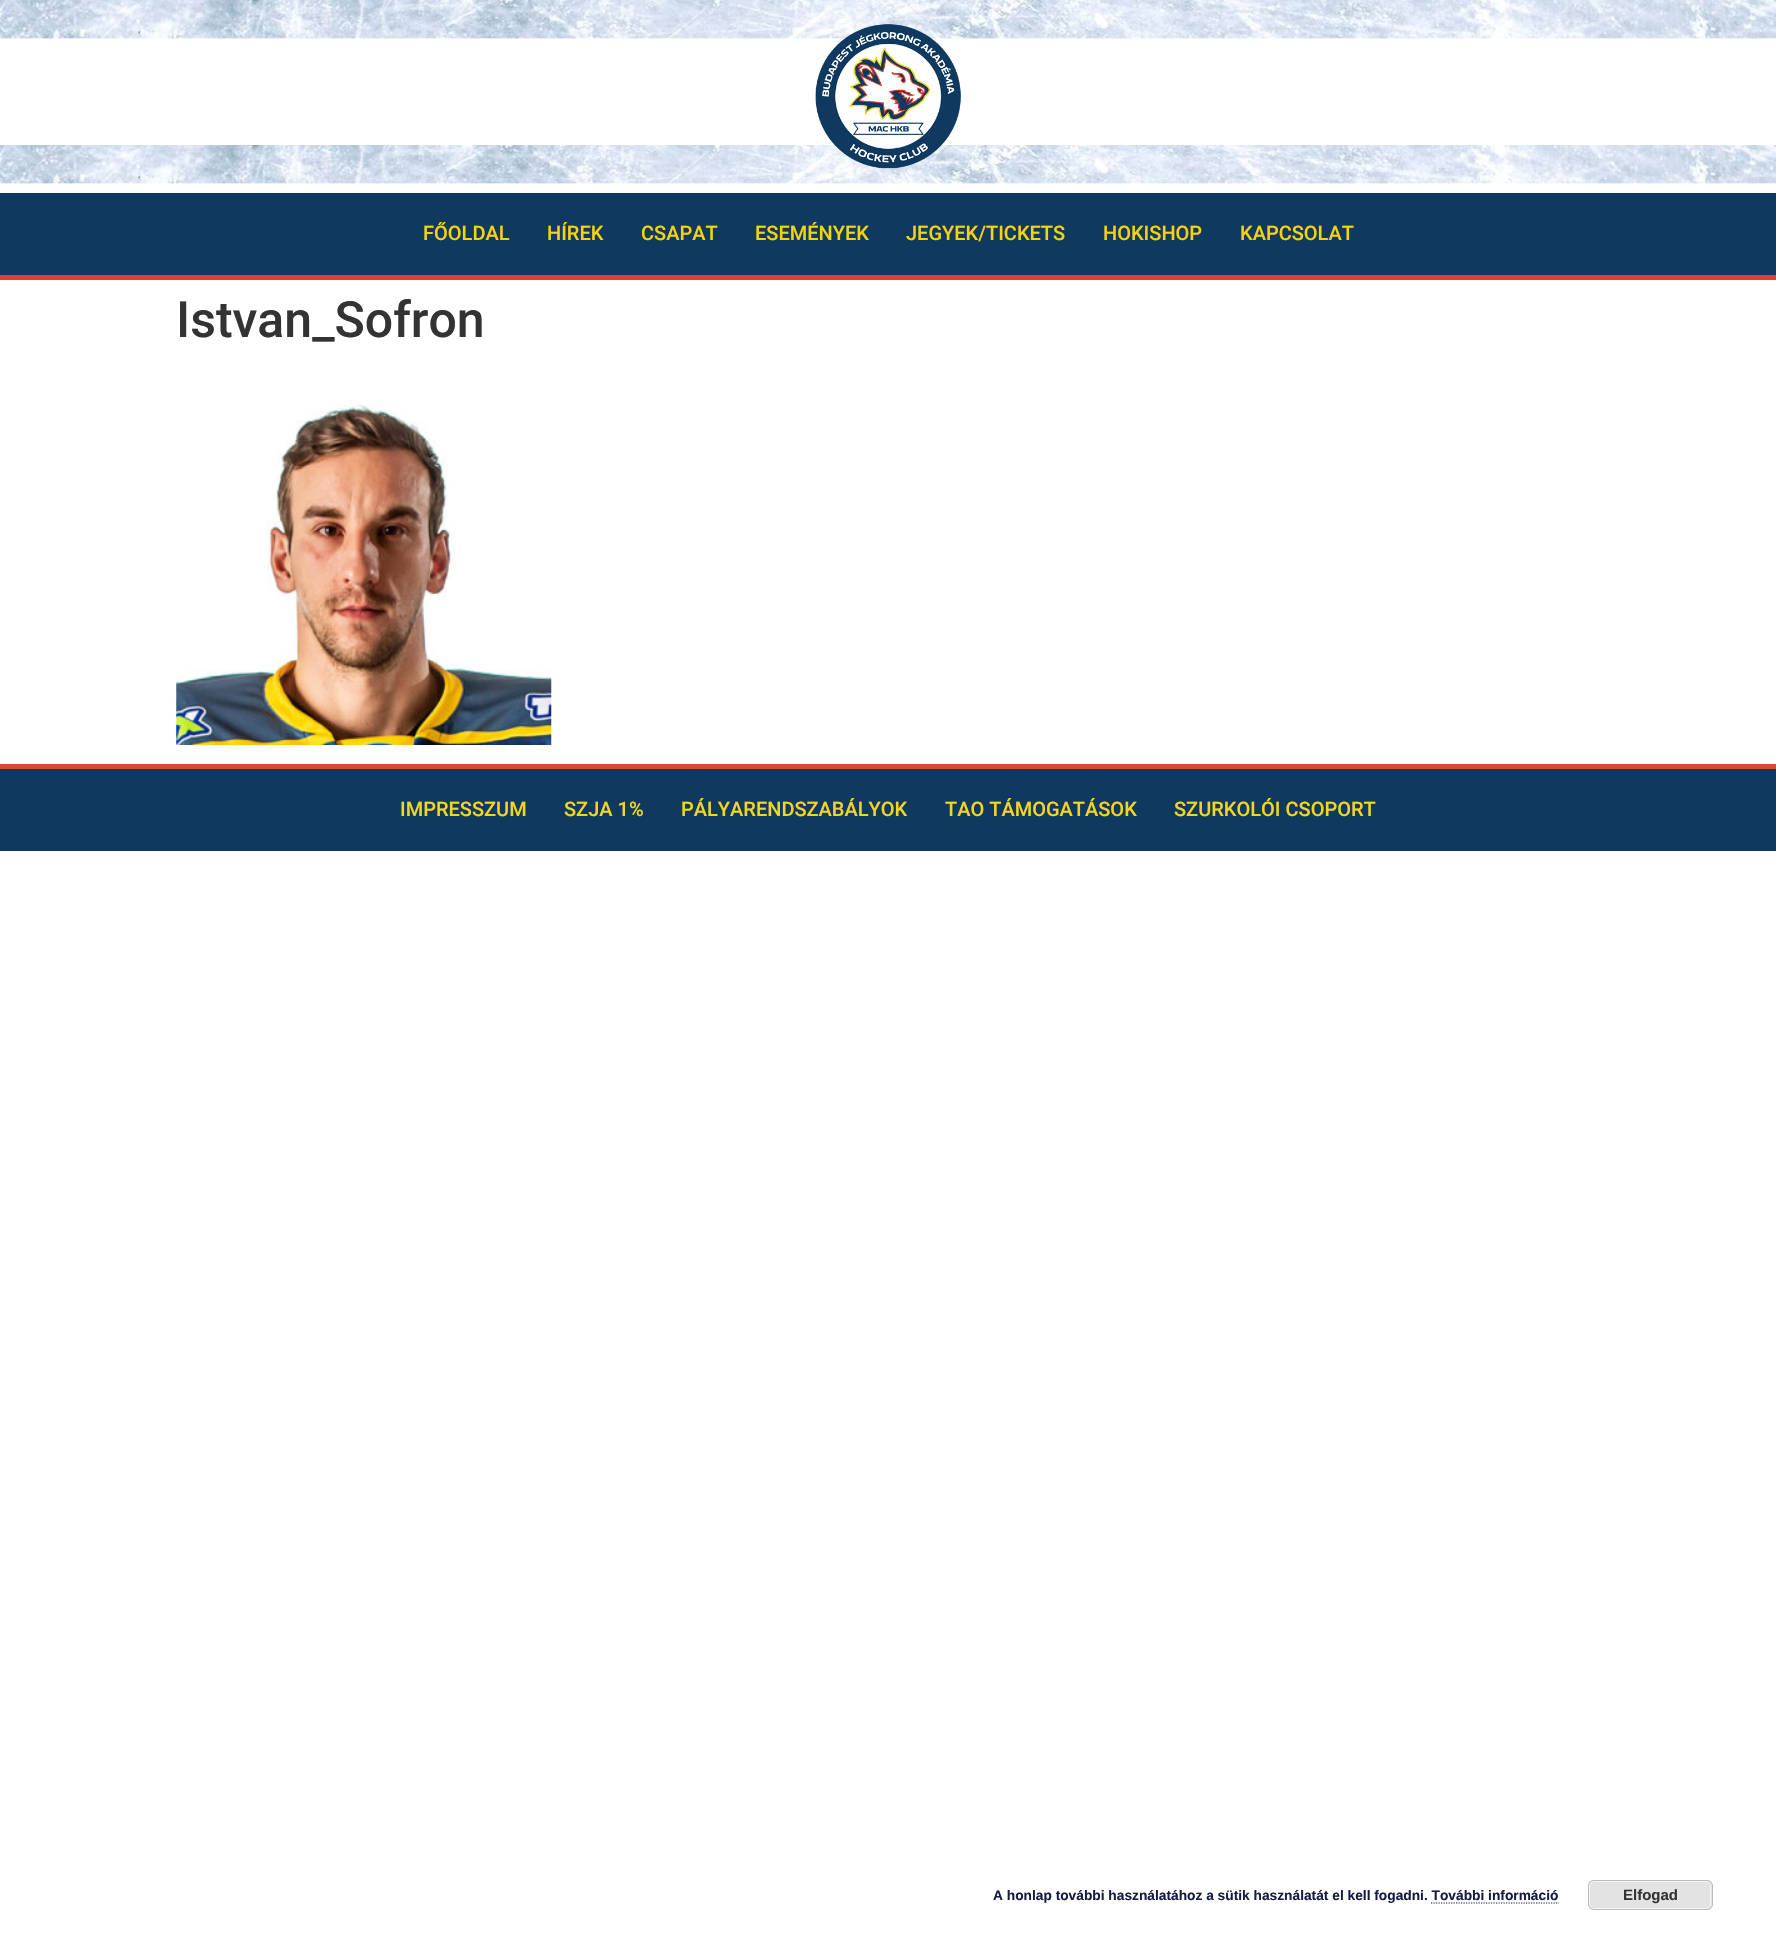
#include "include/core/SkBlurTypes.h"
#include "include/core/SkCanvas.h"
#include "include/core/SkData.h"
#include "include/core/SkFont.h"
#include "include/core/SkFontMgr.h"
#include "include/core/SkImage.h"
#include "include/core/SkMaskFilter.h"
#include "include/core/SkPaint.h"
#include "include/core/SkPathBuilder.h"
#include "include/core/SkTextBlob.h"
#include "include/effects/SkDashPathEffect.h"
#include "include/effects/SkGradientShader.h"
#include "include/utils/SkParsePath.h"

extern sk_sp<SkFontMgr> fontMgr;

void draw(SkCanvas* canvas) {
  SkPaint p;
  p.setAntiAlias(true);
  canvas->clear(SK_ColorWHITE);
  canvas->drawImageRect(SkImages::DeferredFromEncodedData(SkData::MakeFromFileName("images/1.png")), SkRect::MakeLTRB(0, 0, 1776, 184), SkSamplingOptions());
  canvas->drawImageRect(SkImages::DeferredFromEncodedData(SkData::MakeFromFileName("images/2.png")), SkRect::MakeLTRB(815, 24, 961, 169), SkSamplingOptions());
  p.setColor(SkColorSetRGB(15, 57, 95));
  canvas->drawRect(SkRect::MakeLTRB(0, 193, 1776, 275), p);
  p.setColor(SkColorSetRGB(219, 66, 47));
  canvas->drawRect(SkRect::MakeLTRB(0, 275, 1776, 280), p);
  canvas->drawImageRect(SkImages::DeferredFromEncodedData(SkData::MakeFromFileName("images/3.png")), SkRect::MakeLTRB(176, 400, 552, 745), SkSamplingOptions());
  p.setColor(SkColorSetRGB(218, 74, 55));
  canvas->drawRect(SkRect::MakeLTRB(0, 764, 1776, 769), p);
  p.setColor(SkColorSetRGB(15, 57, 95));
  canvas->drawRect(SkRect::MakeLTRB(0, 769, 1776, 851), p);
  p.setColor(SkColorSetRGB(227, 227, 227));
  canvas->drawRoundRect(SkRect::MakeLTRB(1588, 1880, 1713, 1910), 6, 6, p);
  p.setStyle(SkPaint::kStroke_Style);
  p.setStrokeWidth(1);
  p.setColor(SkColorSetRGB(246, 246, 246));
  canvas->drawRoundRect(SkRect::MakeLTRB(1589.5f, 1881.5f, 1710.5f, 1908.5f), 4.5f, 4.5f, p);
  p.setColor(SkColorSetRGB(187, 187, 187));
  canvas->drawRoundRect(SkRect::MakeLTRB(1588.5f, 1880.5f, 1712.5f, 1909.5f), 5.5f, 5.5f, p);
  p.setStrokeWidth(1.2f);
  p.setColor(SkColorSetRGB(21, 27, 68));
  p.setPathEffect(SkDashPathEffect::Make({{1.25f, 1.25f}}, 0));
  canvas->drawPath(SkPathBuilder().moveTo(1431, 1903).lineTo(1559, 1903).detach(), p);
  p.setPathEffect(nullptr);
  SkFont font1(fontMgr->matchFamilyStyle("Roboto", SkFontStyle(500, SkFontStyle::kNormal_Width, SkFontStyle::kUpright_Slant)), 20);
  font1.setSubpixel(true);
  p.setStyle(SkPaint::kFill_Style);
  p.setColor(SkColorSetRGB(246, 211, 12));
  canvas->drawString("FŐOLDAL", 423, 240, font1, p);
  canvas->drawString("HÍREK", 547, 240, font1, p);
  canvas->drawString("CSAPAT", 641, 240, font1, p);
  canvas->drawString("ESEMÉNYEK", 755, 240, font1, p);
  canvas->drawString("JEGYEK/TICKETS", 906, 240, font1, p);
  canvas->drawString("HOKISHOP", 1103, 240, font1, p);
  canvas->drawString("KAPCSOLAT", 1240, 240, font1, p);
  SkFont font2(fontMgr->matchFamilyStyle("Roboto", SkFontStyle(500, SkFontStyle::kNormal_Width, SkFontStyle::kUpright_Slant)), 50);
  font2.setSubpixel(true);
  p.setColor(SkColorSetRGB(51, 51, 51));
  canvas->drawString("Istvan_Sofron", 176, 337, font2, p);
  p.setColor(SkColorSetRGB(244, 213, 34));
  canvas->drawString("IMPRESSZUM", 400, 816, font1, p);
  canvas->drawString("SZJA 1%", 564, 816, font1, p);
  canvas->drawString("PÁLYARENDSZABÁLYOK", 681, 816, font1, p);
  canvas->drawString("TAO TÁMOGATÁSOK", 945, 816, font1, p);
  canvas->drawString("SZURKOLÓI CSOPORT", 1174, 816, font1, p);
  SkFont font3(fontMgr->matchFamilyStyle("Liberation Sans", SkFontStyle::Bold()), 13.75f);
  font3.setSubpixel(true);
  p.setColor(SkColorSetRGB(21, 27, 68));
  canvas->drawString("A honlap további használatához a sütik használatát el kell fogadni. További információ", 993, 1900, font3, p);
  SkFont font4(fontMgr->matchFamilyStyle("Liberation Sans", SkFontStyle::Bold()), 15);
  font4.setSubpixel(true);
  p.setColor(SkColorSetRGB(51, 51, 51));
  canvas->drawString("Elfogad", 1623, 1900, font4, p);
}
